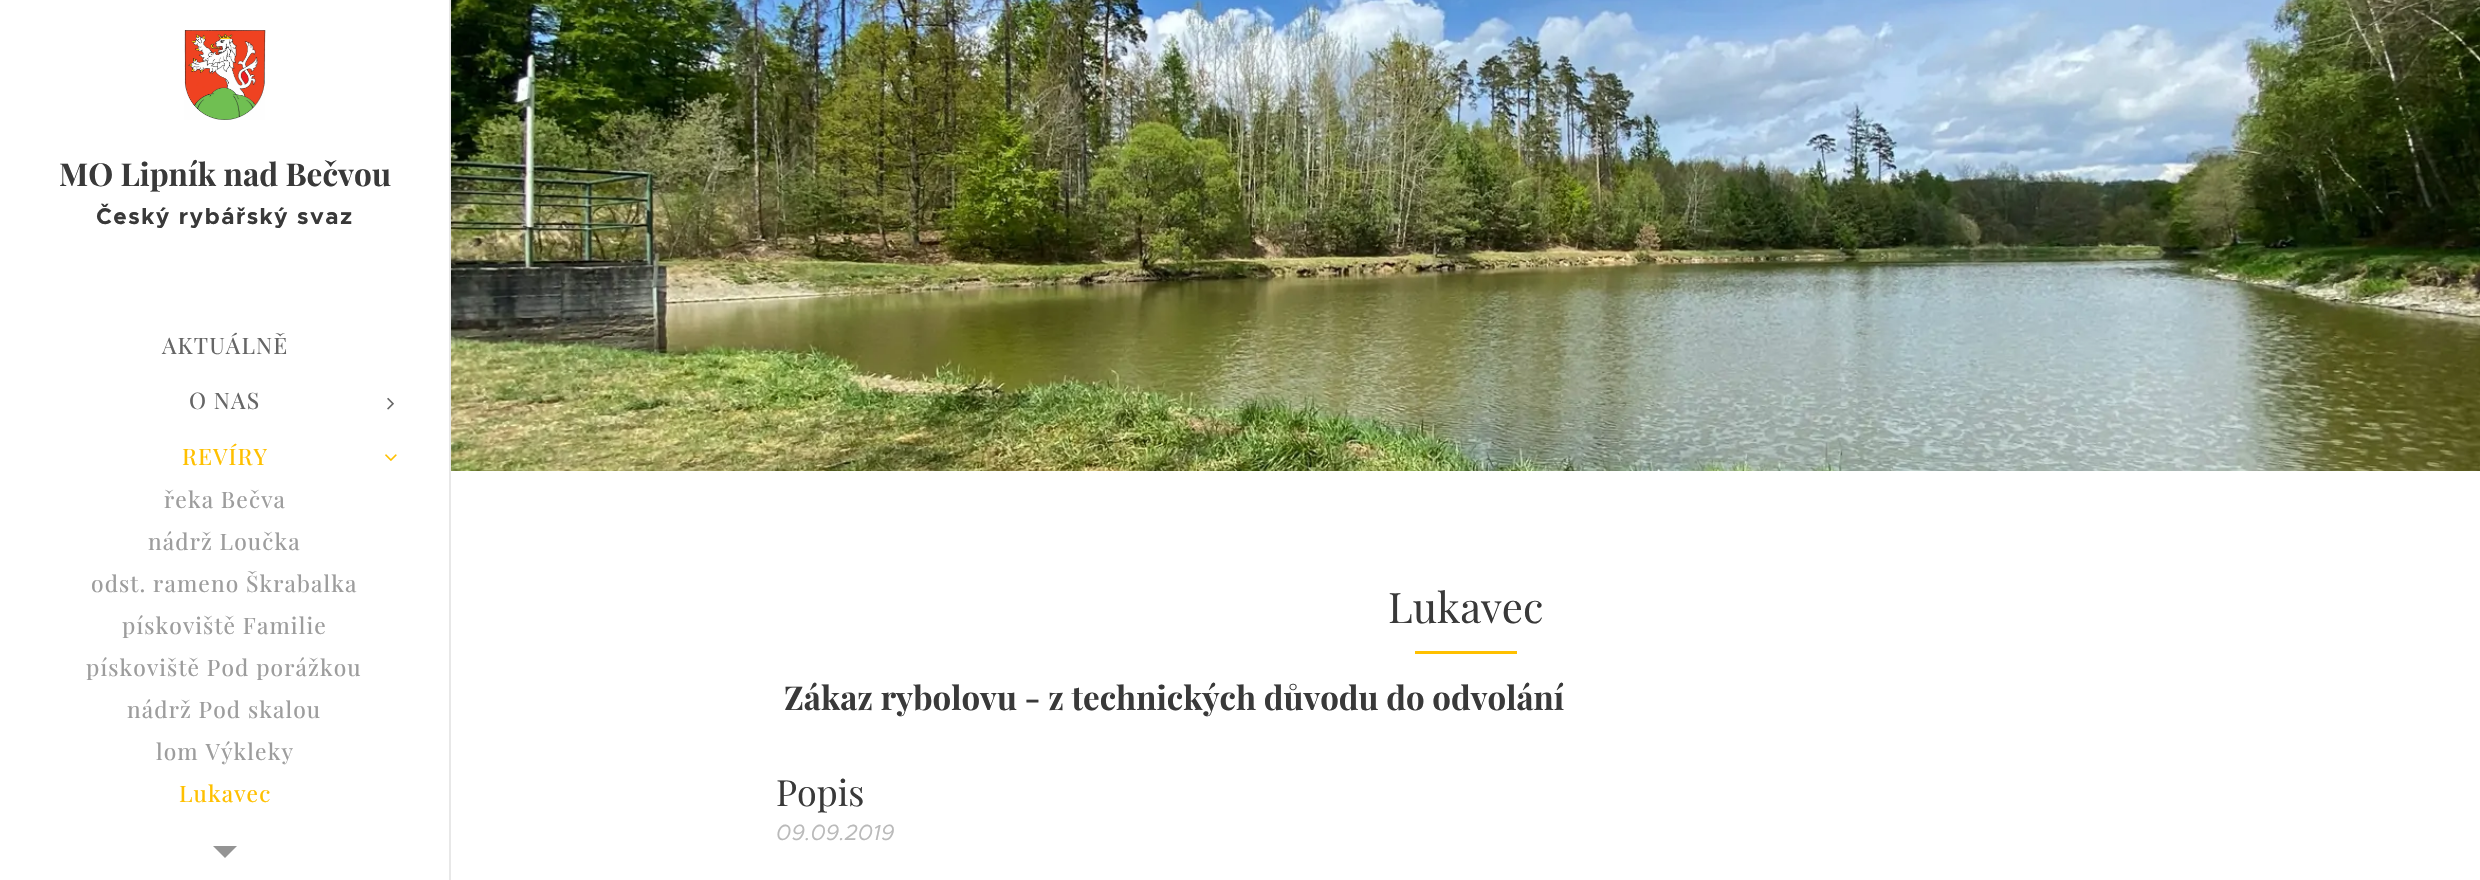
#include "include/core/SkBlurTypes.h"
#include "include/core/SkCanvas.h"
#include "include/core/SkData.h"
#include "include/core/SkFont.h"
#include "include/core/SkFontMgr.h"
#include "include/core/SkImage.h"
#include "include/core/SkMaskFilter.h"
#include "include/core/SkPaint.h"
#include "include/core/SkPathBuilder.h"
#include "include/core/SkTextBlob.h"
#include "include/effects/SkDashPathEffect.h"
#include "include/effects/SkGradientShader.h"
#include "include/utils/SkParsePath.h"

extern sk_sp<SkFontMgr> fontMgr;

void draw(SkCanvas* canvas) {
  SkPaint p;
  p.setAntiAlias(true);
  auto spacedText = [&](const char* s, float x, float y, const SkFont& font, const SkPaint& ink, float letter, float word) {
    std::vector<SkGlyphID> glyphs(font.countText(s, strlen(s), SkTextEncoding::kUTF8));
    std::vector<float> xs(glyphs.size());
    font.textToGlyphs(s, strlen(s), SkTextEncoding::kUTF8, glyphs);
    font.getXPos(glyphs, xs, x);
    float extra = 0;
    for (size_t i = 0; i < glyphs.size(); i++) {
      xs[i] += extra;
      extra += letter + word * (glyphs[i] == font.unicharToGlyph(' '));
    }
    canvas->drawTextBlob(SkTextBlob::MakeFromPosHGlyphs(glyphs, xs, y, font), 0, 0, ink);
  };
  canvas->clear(SK_ColorWHITE);
  canvas->drawImageRect(SkImages::DeferredFromEncodedData(SkData::MakeFromFileName("images/1.png")), SkRect::MakeLTRB(184, 30, 266, 120), SkSamplingOptions());
  canvas->drawImageRect(SkImages::DeferredFromEncodedData(SkData::MakeFromFileName("images/2.png")), SkRect::MakeLTRB(387, 397, 394, 410), SkSamplingOptions());
  canvas->drawImageRect(SkImages::DeferredFromEncodedData(SkData::MakeFromFileName("images/3.png")), SkRect::MakeLTRB(385, 454, 397, 461), SkSamplingOptions());
  p.setColor(SkColorSetRGB(148, 148, 148));
  canvas->drawPath(SkPathBuilder().moveTo(213, 846).lineTo(237, 846).lineTo(225, 858).close().detach(), p);
  p.setColor(SkColorSetRGB(232, 232, 232));
  canvas->drawRect(SkRect::MakeLTRB(449, 0, 451, 880), p);
  canvas->drawImageRect(SkImages::DeferredFromEncodedData(SkData::MakeFromFileName("images/4.png")), SkRect::MakeLTRB(451, 0, 2480, 471), SkSamplingOptions());
  p.setColor(SkColorSetRGB(255, 192, 0));
  canvas->drawRect(SkRect::MakeLTRB(1415, 651, 1517, 654), p);
  SkFont font1(fontMgr->matchFamilyStyle("Playfair Display", SkFontStyle::Bold()), 31.5f);
  font1.setSubpixel(true);
  p.setColor(SkColorSetRGB(57, 57, 57));
  canvas->drawString("MO Lipník nad Bečvou", 59, 186, font1, p);
  SkFont font2(fontMgr->matchFamilyStyle("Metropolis", SkFontStyle::Bold()), 22.75f);
  font2.setSubpixel(true);
  spacedText("Český rybářský svaz", 96, 224, font2, p, 1.5f, 0);
  SkFont font3(fontMgr->matchFamilyStyle("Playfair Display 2", SkFontStyle::Normal()), 22.75f);
  font3.setSubpixel(true);
  p.setColor(SkColorSetRGB(102, 102, 102));
  spacedText("AKTUÁLNĚ", 162, 354, font3, p, 1.1f, 0);
  spacedText("O NAS", 189, 409, font3, p, 1.1f, 0);
  p.setColor(SkColorSetRGB(255, 192, 0));
  spacedText("REVÍRY", 182, 465, font3, p, 1.1f, 0);
  p.setColor(SkColorSetRGB(157, 157, 157));
  spacedText("řeka Bečva", 164, 508, font3, p, 1.1f, 0);
  spacedText("nádrž Loučka", 148, 550, font3, p, 1.1f, 0);
  spacedText("odst. rameno Škrabalka", 91, 592, font3, p, 1.1f, 0);
  spacedText("pískoviště Familie", 122, 634, font3, p, 1.1f, 0);
  spacedText("pískoviště Pod porážkou", 86, 676, font3, p, 1.1f, 0);
  spacedText("nádrž Pod skalou", 127, 718, font3, p, 1.1f, 0);
  spacedText("lom Výkleky", 156, 760, font3, p, 1.1f, 0);
  p.setColor(SkColorSetRGB(255, 192, 0));
  spacedText("Lukavec", 179, 802, font3, p, 1.1f, 0);
  SkFont font4(fontMgr->matchFamilyStyle("Playfair Display", SkFontStyle::Normal()), 42);
  font4.setSubpixel(true);
  p.setColor(SkColorSetRGB(57, 57, 57));
  canvas->drawString("Lukavec", 1388, 623, font4, p);
  SkFont font5(fontMgr->matchFamilyStyle("Playfair Display", SkFontStyle::Bold()), 33);
  font5.setSubpixel(true);
  canvas->drawString("Zákaz rybolovu - z technických důvodu do odvolání", 784, 710, font5, p);
  SkFont font6(fontMgr->matchFamilyStyle("Playfair Display", SkFontStyle::Normal()), 36);
  font6.setSubpixel(true);
  canvas->drawString("Popis", 776, 806, font6, p);
  SkFont font7(fontMgr->matchFamilyStyle("Metropolis", SkFontStyle::Italic()), 22);
  font7.setSubpixel(true);
  p.setColor(SkColorSetRGB(186, 186, 186));
  canvas->drawString("09.09.2019", 776, 840, font7, p);
}
